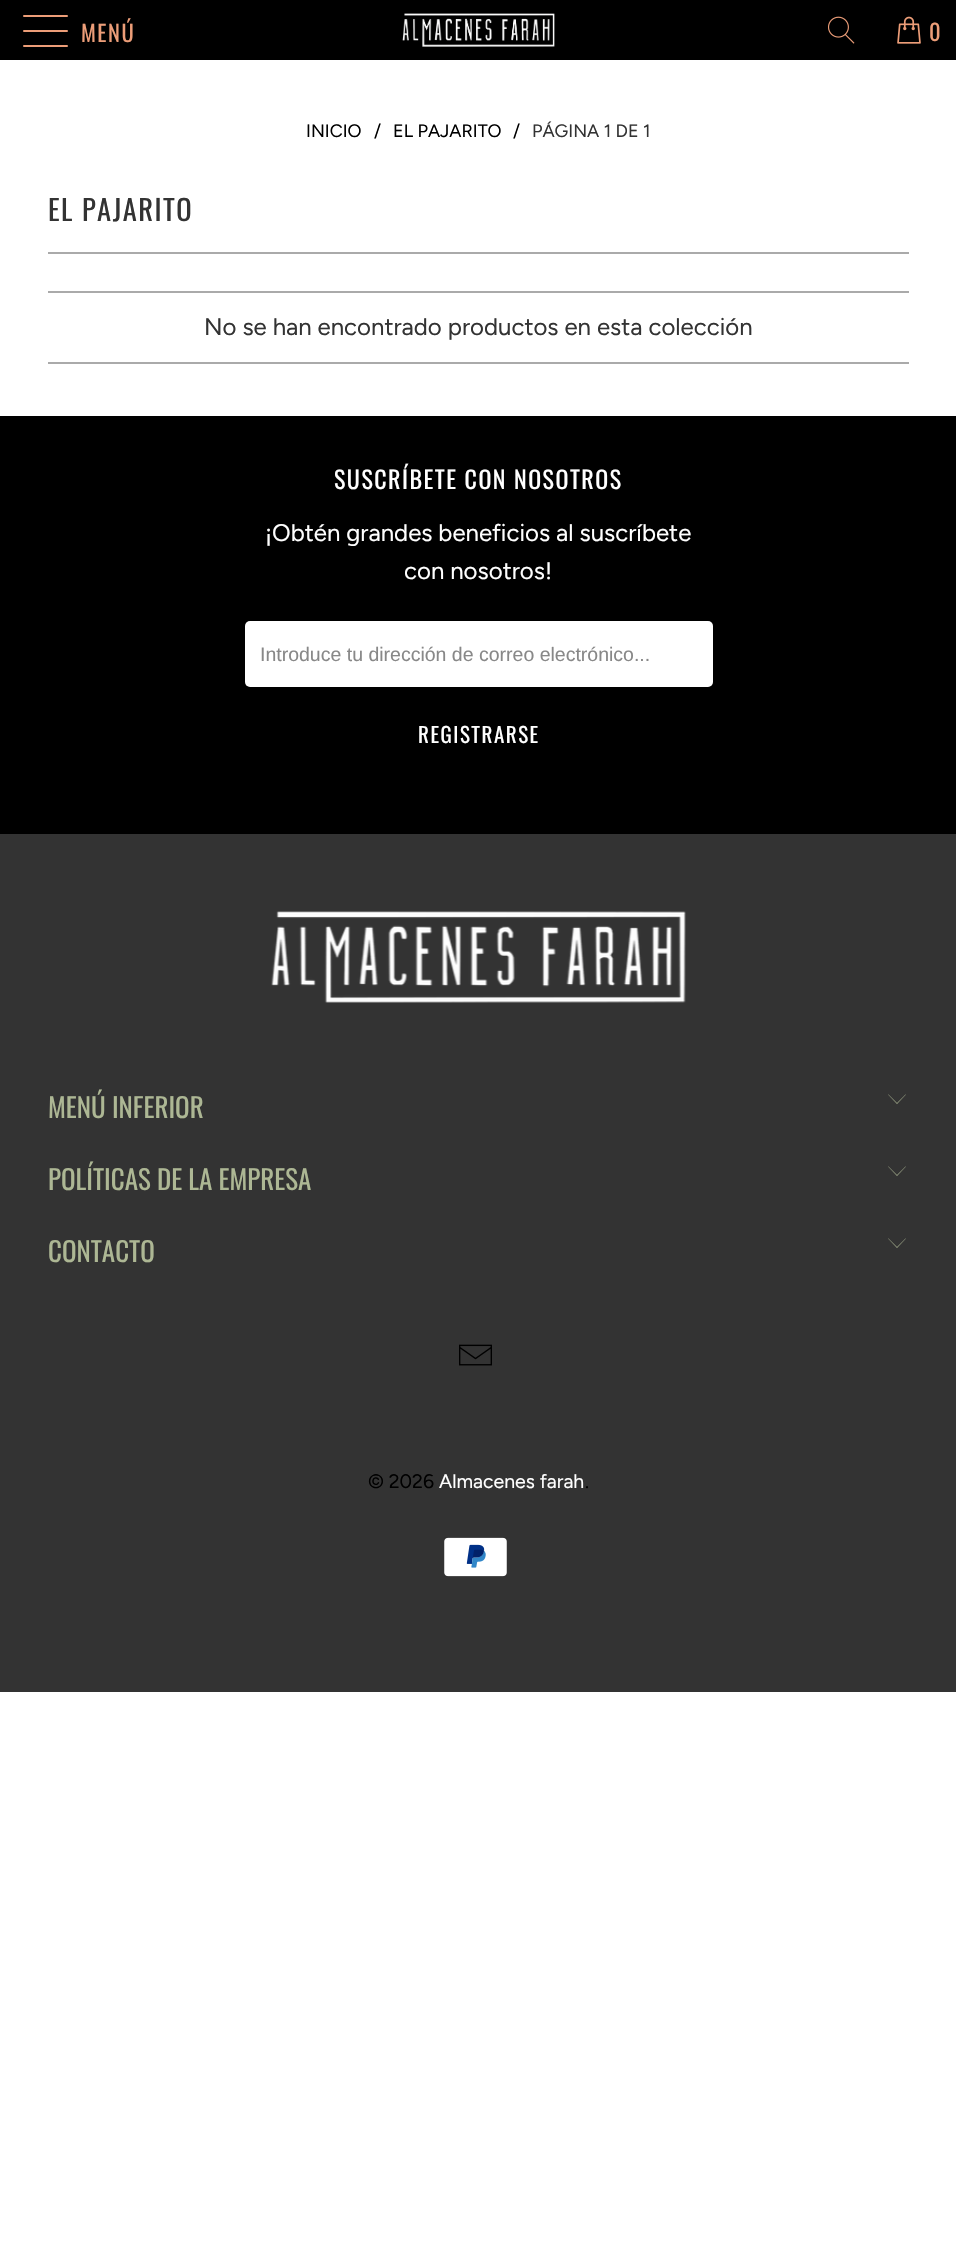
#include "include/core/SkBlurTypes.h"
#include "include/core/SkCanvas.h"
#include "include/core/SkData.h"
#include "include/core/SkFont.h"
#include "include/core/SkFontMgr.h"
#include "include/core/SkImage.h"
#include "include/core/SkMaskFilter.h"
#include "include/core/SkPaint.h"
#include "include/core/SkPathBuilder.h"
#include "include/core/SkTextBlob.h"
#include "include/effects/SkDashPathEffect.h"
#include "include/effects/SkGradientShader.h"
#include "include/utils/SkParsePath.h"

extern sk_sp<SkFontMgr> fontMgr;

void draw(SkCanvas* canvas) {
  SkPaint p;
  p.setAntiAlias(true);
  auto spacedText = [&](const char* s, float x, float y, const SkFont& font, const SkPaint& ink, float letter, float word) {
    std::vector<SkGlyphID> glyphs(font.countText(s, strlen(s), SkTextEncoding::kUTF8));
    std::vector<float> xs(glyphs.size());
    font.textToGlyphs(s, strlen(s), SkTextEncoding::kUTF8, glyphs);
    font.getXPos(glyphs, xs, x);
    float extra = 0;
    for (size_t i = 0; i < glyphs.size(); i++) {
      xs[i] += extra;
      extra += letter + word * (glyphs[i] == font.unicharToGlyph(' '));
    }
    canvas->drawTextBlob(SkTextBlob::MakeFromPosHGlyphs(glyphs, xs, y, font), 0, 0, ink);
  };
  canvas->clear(SK_ColorWHITE);
  p.setColor(SK_ColorBLACK);
  canvas->drawRect(SkRect::MakeLTRB(0, 0, 956, 60), p);
  p.setColor(SkColorSetRGB(236, 157, 120));
  canvas->drawRoundRect(SkRect::MakeLTRB(23, 15, 68, 17), 1, 1, p);
  canvas->drawRoundRect(SkRect::MakeLTRB(23, 30, 68, 32), 1, 1, p);
  canvas->drawRoundRect(SkRect::MakeLTRB(23, 45, 68, 47), 1, 1, p);
  canvas->drawImageRect(SkImages::DeferredFromEncodedData(SkData::MakeFromFileName("images/1.png")), SkRect::MakeLTRB(402, 13, 555, 47), SkSamplingOptions());
  canvas->drawImageRect(SkImages::DeferredFromEncodedData(SkData::MakeFromFileName("images/2.png")), SkRect::MakeLTRB(828, 16, 855, 44), SkSamplingOptions());
  canvas->drawImageRect(SkImages::DeferredFromEncodedData(SkData::MakeFromFileName("images/3.png")), SkRect::MakeLTRB(897, 16, 921, 44), SkSamplingOptions());
  p.setColor(SkColorSetRGB(170, 170, 170));
  canvas->drawRect(SkRect::MakeLTRB(48, 252, 909, 254), p);
  canvas->drawRect(SkRect::MakeLTRB(48, 291, 909, 293), p);
  canvas->drawRect(SkRect::MakeLTRB(48, 362, 909, 364), p);
  p.setColor(SK_ColorBLACK);
  canvas->drawRect(SkRect::MakeLTRB(0, 416, 956, 834), p);
  p.setColor(SK_ColorWHITE);
  canvas->drawRoundRect(SkRect::MakeLTRB(245, 621, 713, 687), 5, 5, p);
  p.setColor(SkColorSetRGB(51, 51, 51));
  canvas->drawRect(SkRect::MakeLTRB(0, 834, 956, 1692), p);
  canvas->drawImageRect(SkImages::DeferredFromEncodedData(SkData::MakeFromFileName("images/4.png")), SkRect::MakeLTRB(271, 911, 686, 1003), SkSamplingOptions());
  p.setColor(SkColorSetRGB(173, 183, 148));
  canvas->drawPath(SkPathBuilder().moveTo(897, 1104).lineTo(888, 1094.5f).lineTo(888.5f, 1094.5f).lineTo(897, 1103).lineTo(905.5f, 1094.5f).lineTo(906, 1094.5f).close().detach(), p);
  canvas->drawPath(SkPathBuilder().moveTo(897, 1176).lineTo(888, 1166.5f).lineTo(888.5f, 1166.5f).lineTo(897, 1175).lineTo(905.5f, 1166.5f).lineTo(906, 1166.5f).close().detach(), p);
  canvas->drawPath(SkPathBuilder().moveTo(897, 1248).lineTo(888, 1238.5f).lineTo(888.5f, 1238.5f).lineTo(897, 1247).lineTo(905.5f, 1238.5f).lineTo(906, 1238.5f).close().detach(), p);
  canvas->drawImageRect(SkImages::DeferredFromEncodedData(SkData::MakeFromFileName("images/5.png")), SkRect::MakeLTRB(459, 1344, 492, 1366), SkSamplingOptions());
  canvas->drawImageRect(SkImages::DeferredFromEncodedData(SkData::MakeFromFileName("images/6.png")), SkRect::MakeLTRB(444, 1537, 507, 1577), SkSamplingOptions());
  SkFont font1(fontMgr->matchFamilyStyle("Oswald", SkFontStyle::Normal()), 22.5f);
  font1.setSubpixel(true);
  p.setColor(SkColorSetRGB(236, 157, 120));
  spacedText("MENÚ", 81, 42, font1, p, 1.5f, 0);
  spacedText("0", 929, 41, font1, p, 1.5f, 0);
  SkFont font2(fontMgr->matchFamilyStyle("Figtree", SkFontStyle::Normal()), 18);
  font2.setSubpixel(true);
  p.setColor(SK_ColorBLACK);
  canvas->drawString("INICIO", 306, 137, font2, p);
  canvas->drawString("/", 374, 137, font2, p);
  canvas->drawString("EL PAJARITO", 393, 137, font2, p);
  canvas->drawString("/", 513, 137, font2, p);
  p.setColor(SkColorSetRGB(51, 51, 51));
  canvas->drawString("PÁGINA 1 DE 1", 532, 137, font2, p);
  SkFont font3(fontMgr->matchFamilyStyle("Oswald", SkFontStyle::Normal()), 28.5f);
  font3.setSubpixel(true);
  spacedText("EL PAJARITO", 48, 221, font3, p, 1.5f, 0);
  SkFont font4(fontMgr->matchFamilyStyle("Figtree", SkFontStyle::Normal()), 24);
  font4.setSubpixel(true);
  canvas->drawString("No se han encontrado productos en esta colección", 204, 335, font4, p);
  SkFont font5(fontMgr->matchFamilyStyle("Oswald", SkFontStyle::Normal()), 24);
  font5.setSubpixel(true);
  p.setColor(SK_ColorWHITE);
  spacedText("SUSCRÍBETE CON NOSOTROS", 334, 489, font5, p, 1.5f, 0);
  canvas->drawString("¡Obtén grandes beneficios al suscríbete", 265, 541, font4, p);
  canvas->drawString("con nosotros!", 404, 579, font4, p);
  SkFont font6(fontMgr->matchFamilyStyle("Liberation Sans", SkFontStyle::Normal()), 19.5f);
  font6.setSubpixel(true);
  p.setColor(SkColorSetRGB(136, 136, 136));
  canvas->drawString("Introduce tu dirección de correo electrónico...", 260, 661, font6, p);
  SkFont font7(fontMgr->matchFamilyStyle("Oswald", SkFontStyle::Normal()), 21);
  font7.setSubpixel(true);
  p.setColor(SK_ColorWHITE);
  spacedText("REGISTRARSE", 418, 743, font7, p, 1.5f, 0);
  SkFont font8(fontMgr->matchFamilyStyle("Oswald", SkFontStyle::Normal()), 27);
  font8.setSubpixel(true);
  p.setColor(SkColorSetRGB(173, 183, 148));
  canvas->drawString("MENÚ INFERIOR", 48, 1118, font8, p);
  canvas->drawString("POLÍTICAS DE LA EMPRESA", 48, 1190, font8, p);
  canvas->drawString("CONTACTO", 48, 1262, font8, p);
  SkFont font9(fontMgr->matchFamilyStyle("Figtree", SkFontStyle::Normal()), 19.5f);
  font9.setSubpixel(true);
  p.setColor(SK_ColorBLACK);
  canvas->drawString("© 2026", 368, 1488, font9, p);
  p.setColor(SK_ColorWHITE);
  canvas->drawString("Almacenes farah", 439, 1488, font9, p);
  p.setColor(SK_ColorBLACK);
  canvas->drawString(".", 585, 1488, font9, p);
}
